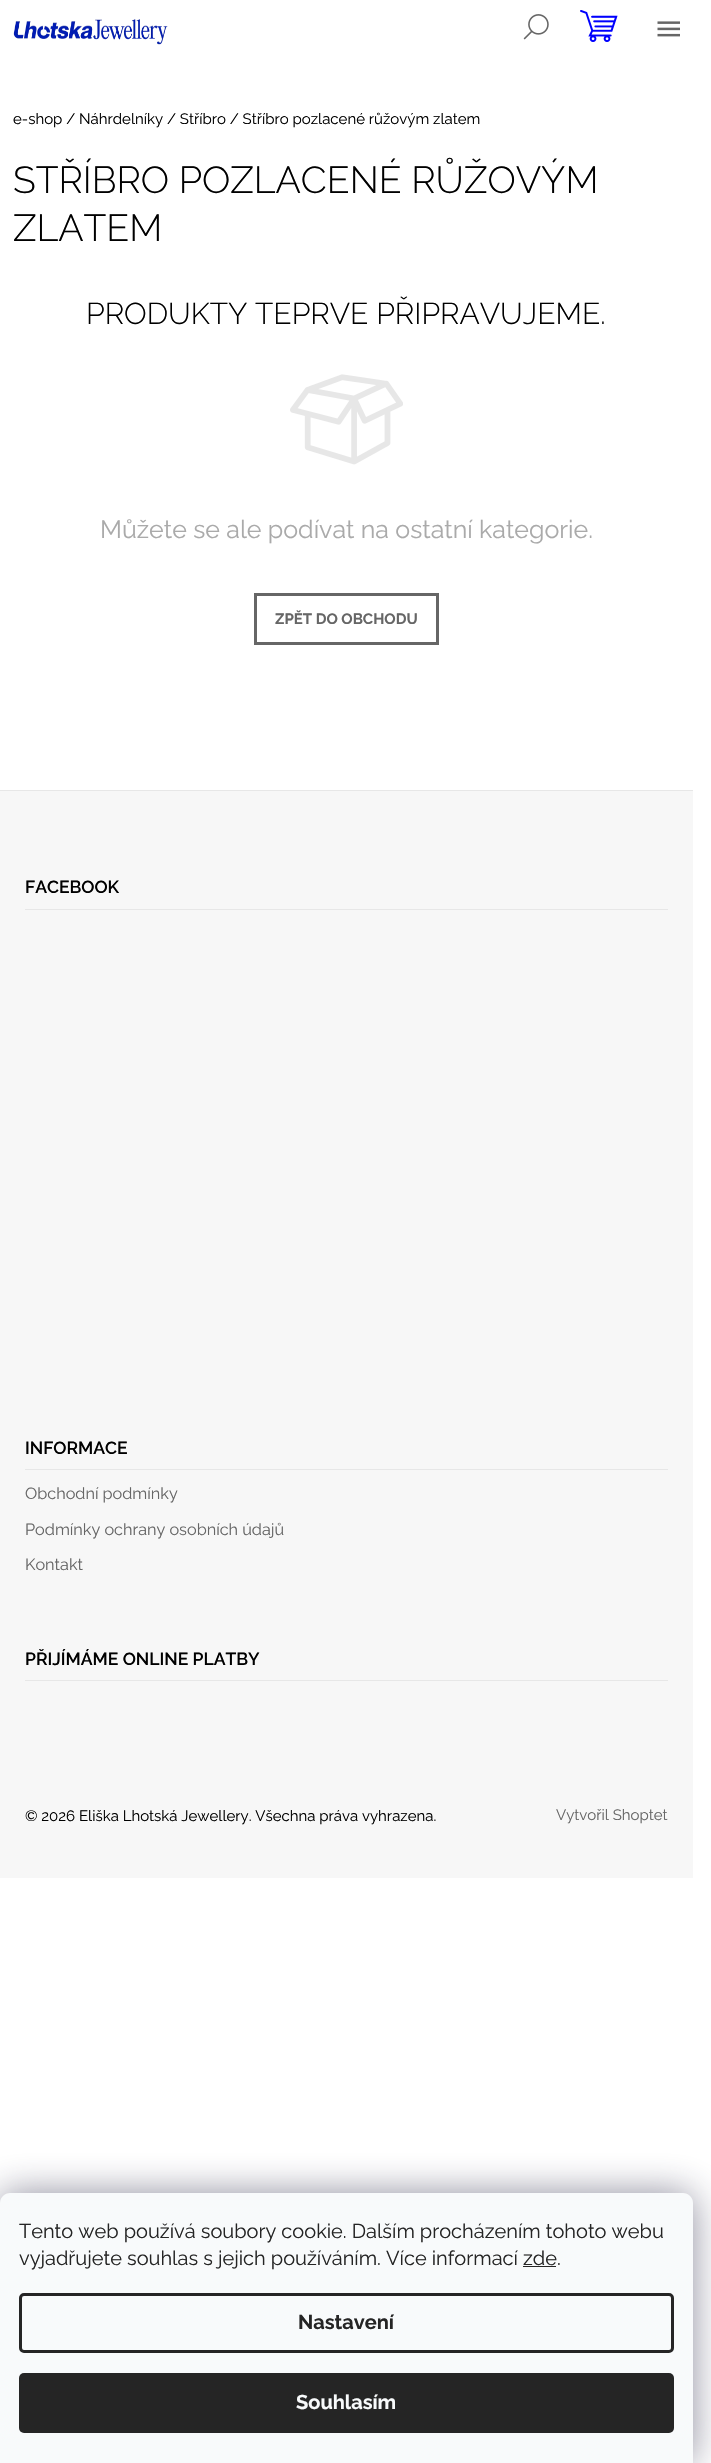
#include "include/core/SkBlurTypes.h"
#include "include/core/SkCanvas.h"
#include "include/core/SkData.h"
#include "include/core/SkFont.h"
#include "include/core/SkFontMgr.h"
#include "include/core/SkImage.h"
#include "include/core/SkMaskFilter.h"
#include "include/core/SkPaint.h"
#include "include/core/SkPathBuilder.h"
#include "include/core/SkTextBlob.h"
#include "include/effects/SkDashPathEffect.h"
#include "include/effects/SkGradientShader.h"
#include "include/utils/SkParsePath.h"

extern sk_sp<SkFontMgr> fontMgr;

void draw(SkCanvas* canvas) {
  SkPaint p;
  p.setAntiAlias(true);
  canvas->clear(SK_ColorWHITE);
  canvas->drawImageRect(SkImages::DeferredFromEncodedData(SkData::MakeFromFileName("images/1.png")), SkRect::MakeLTRB(13, 19, 168, 45), SkSamplingOptions());
  canvas->drawImageRect(SkImages::DeferredFromEncodedData(SkData::MakeFromFileName("images/2.png")), SkRect::MakeLTRB(523, 14, 549, 40), SkSamplingOptions());
  canvas->drawImageRect(SkImages::DeferredFromEncodedData(SkData::MakeFromFileName("images/3.png")), SkRect::MakeLTRB(580, 10, 618, 42), SkSamplingOptions());
  canvas->drawImageRect(SkImages::DeferredFromEncodedData(SkData::MakeFromFileName("images/4.png")), SkRect::MakeLTRB(657, 21, 680, 37), SkSamplingOptions());
  canvas->drawImageRect(SkImages::DeferredFromEncodedData(SkData::MakeFromFileName("images/5.png")), SkRect::MakeLTRB(290, 374, 403, 465), SkSamplingOptions());
  p.setStyle(SkPaint::kStroke_Style);
  p.setStrokeWidth(3);
  p.setColor(SkColorSetRGB(102, 102, 102));
  canvas->drawRect(SkRect::MakeLTRB(255.5f, 594.5f, 437.5f, 643.5f), p);
  p.setStyle(SkPaint::kFill_Style);
  p.setColor(SkColorSetRGB(247, 247, 247));
  canvas->drawRect(SkRect::MakeLTRB(0, 791, 693, 1878), p);
  p.setColor(SkColorSetRGB(231, 231, 231));
  canvas->drawRect(SkRect::MakeLTRB(0, 790, 693, 791), p);
  canvas->drawRect(SkRect::MakeLTRB(25, 909, 668, 910), p);
  canvas->drawRect(SkRect::MakeLTRB(25, 1469, 668, 1470), p);
  canvas->drawRect(SkRect::MakeLTRB(25, 1680, 668, 1681), p);
  p.setColor(SkColorSetARGB(128, 27, 25, 57));
  p.setMaskFilter(SkMaskFilter::MakeBlur(kNormal_SkBlurStyle, 19));
  canvas->drawRoundRect(SkRect::MakeLTRB(0, 2193, 693, 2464), 10, 10, p);
  p.setMaskFilter(nullptr);
  p.setColor(SkColorSetRGB(248, 250, 251));
  canvas->drawPath(SkPathBuilder().moveTo(10, 2193).lineTo(683, 2193).cubicTo(688.5f, 2193, 693, 2197.5f, 693, 2203).lineTo(693, 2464).lineTo(0, 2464).lineTo(0, 2203).cubicTo(0, 2197.5f, 4.5f, 2193, 10, 2193).close().detach(), p);
  p.setColor(SkColorSetRGB(37, 37, 37));
  canvas->drawRect(SkRect::MakeLTRB(523, 2266, 556, 2267), p);
  p.setStyle(SkPaint::kStroke_Style);
  canvas->drawRoundRect(SkRect::MakeLTRB(20.5f, 2294.5f, 672.5f, 2351.5f), 3.5f, 3.5f, p);
  p.setStyle(SkPaint::kFill_Style);
  canvas->drawRoundRect(SkRect::MakeLTRB(19, 2373, 674, 2433), 5, 5, p);
  SkFont font1(fontMgr->matchFamilyStyle("Raleway", SkFontStyle::Normal()), 15);
  font1.setSubpixel(true);
  p.setColor(SK_ColorBLACK);
  canvas->drawString("e-shop / Náhrdelníky / Stříbro / Stříbro pozlacené růžovým zlatem", 13, 124, font1, p);
  SkFont font2(fontMgr->matchFamilyStyle("Raleway", SkFontStyle(300, SkFontStyle::kNormal_Width, SkFontStyle::kUpright_Slant)), 37.5f);
  font2.setSubpixel(true);
  canvas->drawString("STŘÍBRO POZLACENÉ RŮŽOVÝM", 13, 193, font2, p);
  canvas->drawString("ZLATEM", 13, 241, font2, p);
  SkFont font3(fontMgr->matchFamilyStyle("Raleway", SkFontStyle(300, SkFontStyle::kNormal_Width, SkFontStyle::kUpright_Slant)), 30);
  font3.setSubpixel(true);
  canvas->drawString("PRODUKTY TEPRVE PŘIPRAVUJEME.", 86, 324, font3, p);
  SkFont font4(fontMgr->matchFamilyStyle("Raleway", SkFontStyle::Normal()), 25);
  font4.setSubpixel(true);
  p.setColor(SkColorSetRGB(170, 170, 170));
  canvas->drawString("Můžete se ale podívat na ostatní kategorie.", 100, 538, font4, p);
  SkFont font5(fontMgr->matchFamilyStyle("Raleway", SkFontStyle::Bold()), 15);
  font5.setSubpixel(true);
  p.setColor(SkColorSetRGB(102, 102, 102));
  canvas->drawString("ZPĚT DO OBCHODU", 275, 624, font5, p);
  SkFont font6(fontMgr->matchFamilyStyle("Raleway", SkFontStyle(600, SkFontStyle::kNormal_Width, SkFontStyle::kUpright_Slant)), 17.5f);
  font6.setSubpixel(true);
  p.setColor(SK_ColorBLACK);
  canvas->drawString("FACEBOOK", 25, 893, font6, p);
  canvas->drawString("INFORMACE", 25, 1454, font6, p);
  SkFont font7(fontMgr->matchFamilyStyle("Raleway", SkFontStyle::Normal()), 16.25f);
  font7.setSubpixel(true);
  p.setColor(SkColorSetRGB(102, 102, 102));
  canvas->drawString("Obchodní podmínky", 25, 1499, font7, p);
  canvas->drawString("Podmínky ochrany osobních údajů", 25, 1535, font7, p);
  canvas->drawString("Kontakt", 25, 1570, font7, p);
  p.setColor(SK_ColorBLACK);
  canvas->drawString("PŘIJÍMÁME ONLINE PLATBY", 25, 1665, font6, p);
  canvas->drawString("© 2026 Eliška Lhotská Jewellery. Všechna práva vyhrazena.", 25, 1821, font1, p);
  p.setColor(SkColorSetRGB(102, 102, 102));
  canvas->drawString("Vytvořil Shoptet", 556, 1820, font1, p);
  SkFont font8(fontMgr->matchFamilyStyle("Raleway", SkFontStyle::Normal()), 20);
  font8.setSubpixel(true);
  p.setColor(SkColorSetRGB(37, 37, 37));
  canvas->drawString("Tento web používá soubory cookie. Dalším procházením tohoto webu", 19, 2238, font8, p);
  canvas->drawString("vyjadřujete souhlas s jejich používáním. Více informací zde.", 19, 2265, font8, p);
  SkFont font9(fontMgr->matchFamilyStyle("Raleway", SkFontStyle::Bold()), 20);
  font9.setSubpixel(true);
  canvas->drawString("Nastavení", 298, 2329, font9, p);
  p.setColor(SkColorSetRGB(248, 250, 251));
  canvas->drawString("Souhlasím", 296, 2409, font9, p);
}
